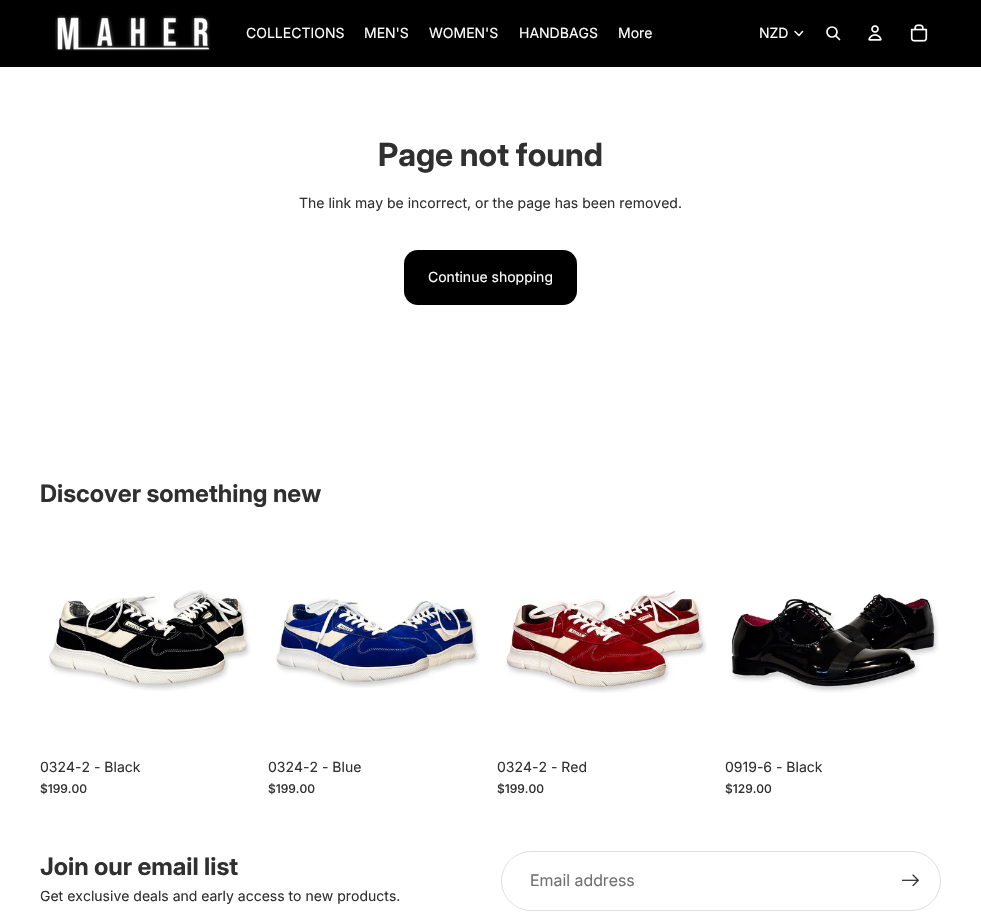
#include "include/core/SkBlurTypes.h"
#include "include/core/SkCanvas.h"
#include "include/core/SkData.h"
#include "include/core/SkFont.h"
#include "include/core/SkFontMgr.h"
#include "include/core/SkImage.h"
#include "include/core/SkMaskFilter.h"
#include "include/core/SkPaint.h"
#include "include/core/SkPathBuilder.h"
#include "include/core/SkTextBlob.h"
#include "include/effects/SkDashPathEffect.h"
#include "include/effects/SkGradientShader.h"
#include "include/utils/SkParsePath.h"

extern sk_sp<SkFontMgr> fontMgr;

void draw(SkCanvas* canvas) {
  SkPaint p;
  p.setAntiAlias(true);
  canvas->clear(SK_ColorWHITE);
  p.setColor(SK_ColorBLACK);
  canvas->drawRect(SkRect::MakeLTRB(0, 0, 981, 67), p);
  canvas->drawImageRect(SkImages::DeferredFromEncodedData(SkData::MakeFromFileName("images/1.png")), SkRect::MakeLTRB(55, 15, 211, 51), SkSamplingOptions());
  p.setStyle(SkPaint::kStroke_Style);
  p.setStrokeWidth(1.5f);
  p.setStrokeCap(SkPaint::kRound_Cap);
  p.setStrokeJoin(SkPaint::kRound_Join);
  p.setColor(SK_ColorWHITE);
  canvas->drawPath(SkPathBuilder().moveTo(802.5f, 31.5f).lineTo(799, 35.5f).lineTo(795, 31.5f).detach(), p);
  p.setStrokeWidth(1.7f);
  p.setStrokeCap(SkPaint::kButt_Cap);
  p.setStrokeJoin(SkPaint::kMiter_Join);
  canvas->drawCircle(832, 32, 5, p);
  p.setStrokeCap(SkPaint::kRound_Cap);
  p.setStrokeJoin(SkPaint::kRound_Join);
  canvas->drawPath(SkPathBuilder().moveTo(836, 36).lineTo(839.5f, 39.5f).detach(), p);
  canvas->drawImageRect(SkImages::DeferredFromEncodedData(SkData::MakeFromFileName("images/2.png")), SkRect::MakeLTRB(868, 25, 882, 41), SkSamplingOptions());
  canvas->drawImageRect(SkImages::DeferredFromEncodedData(SkData::MakeFromFileName("images/3.png")), SkRect::MakeLTRB(910, 24, 928, 42), SkSamplingOptions());
  p.setStyle(SkPaint::kFill_Style);
  p.setColor(SK_ColorBLACK);
  canvas->drawRoundRect(SkRect::MakeLTRB(404, 250, 577, 305), 14, 14, p);
  canvas->drawImageRect(SkImages::DeferredFromEncodedData(SkData::MakeFromFileName("images/4.png")), SkRect::MakeLTRB(48, 590, 251, 691), SkSamplingOptions());
  canvas->drawImageRect(SkImages::DeferredFromEncodedData(SkData::MakeFromFileName("images/5.png")), SkRect::MakeLTRB(276, 598, 480, 688), SkSamplingOptions());
  canvas->drawImageRect(SkImages::DeferredFromEncodedData(SkData::MakeFromFileName("images/6.png")), SkRect::MakeLTRB(505, 590, 707, 693), SkSamplingOptions());
  canvas->drawImageRect(SkImages::DeferredFromEncodedData(SkData::MakeFromFileName("images/7.png")), SkRect::MakeLTRB(730, 594, 939, 693), SkSamplingOptions());
  p.setStyle(SkPaint::kStroke_Style);
  p.setStrokeWidth(1);
  p.setStrokeCap(SkPaint::kButt_Cap);
  p.setStrokeJoin(SkPaint::kMiter_Join);
  p.setColor(SkColorSetRGB(223, 223, 223));
  canvas->drawRoundRect(SkRect::MakeLTRB(501.5f, 851.5f, 940.5f, 910.5f), 29.5f, 29.5f, p);
  canvas->drawImageRect(SkImages::DeferredFromEncodedData(SkData::MakeFromFileName("images/8.png")), SkRect::MakeLTRB(901, 874, 919, 887), SkSamplingOptions());
  SkFont font1(fontMgr->matchFamilyStyle("Inter", SkFontStyle::Normal()), 14);
  font1.setSubpixel(true);
  p.setStyle(SkPaint::kFill_Style);
  p.setColor(SK_ColorWHITE);
  canvas->drawString("COLLECTIONS", 246, 38, font1, p);
  canvas->drawString("MEN'S", 364, 38, font1, p);
  canvas->drawString("WOMEN'S", 429, 38, font1, p);
  canvas->drawString("HANDBAGS", 519, 38, font1, p);
  canvas->drawString("More", 618, 38, font1, p);
  canvas->drawString("NZD", 759, 38, font1, p);
  SkFont font2(fontMgr->matchFamilyStyle("Inter", SkFontStyle::Bold()), 32);
  font2.setSubpixel(true);
  p.setColor(SkColorSetRGB(48, 48, 48));
  canvas->drawString("Page not found", 378, 166, font2, p);
  canvas->drawString("The link may be incorrect, or the page has been removed.", 299, 208, font1, p);
  p.setColor(SK_ColorWHITE);
  canvas->drawString("Continue shopping", 428, 282, font1, p);
  SkFont font3(fontMgr->matchFamilyStyle("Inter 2", SkFontStyle::Bold()), 24);
  font3.setSubpixel(true);
  p.setColor(SkColorSetRGB(48, 48, 48));
  canvas->drawString("Discover something new", 40, 502, font3, p);
  canvas->drawString("0324-2 - Black", 40, 772, font1, p);
  SkFont font4(fontMgr->matchFamilyStyle("Inter", SkFontStyle(500, SkFontStyle::kNormal_Width, SkFontStyle::kUpright_Slant)), 12);
  font4.setSubpixel(true);
  canvas->drawString("$199.00", 40, 793, font4, p);
  canvas->drawString("0324-2 - Blue", 268, 772, font1, p);
  canvas->drawString("$199.00", 268, 793, font4, p);
  canvas->drawString("0324-2 - Red", 497, 772, font1, p);
  canvas->drawString("$199.00", 497, 793, font4, p);
  canvas->drawString("0919-6 - Black", 725, 772, font1, p);
  canvas->drawString("$129.00", 725, 793, font4, p);
  canvas->drawString("Join our email list", 40, 875, font3, p);
  canvas->drawString("Get exclusive deals and early access to new products.", 40, 901, font1, p);
  SkFont font5(fontMgr->matchFamilyStyle("Inter 2", SkFontStyle::Normal()), 16);
  font5.setSubpixel(true);
  p.setColor(SkColorSetRGB(112, 112, 112));
  canvas->drawString("Email address", 530, 886, font5, p);
}
